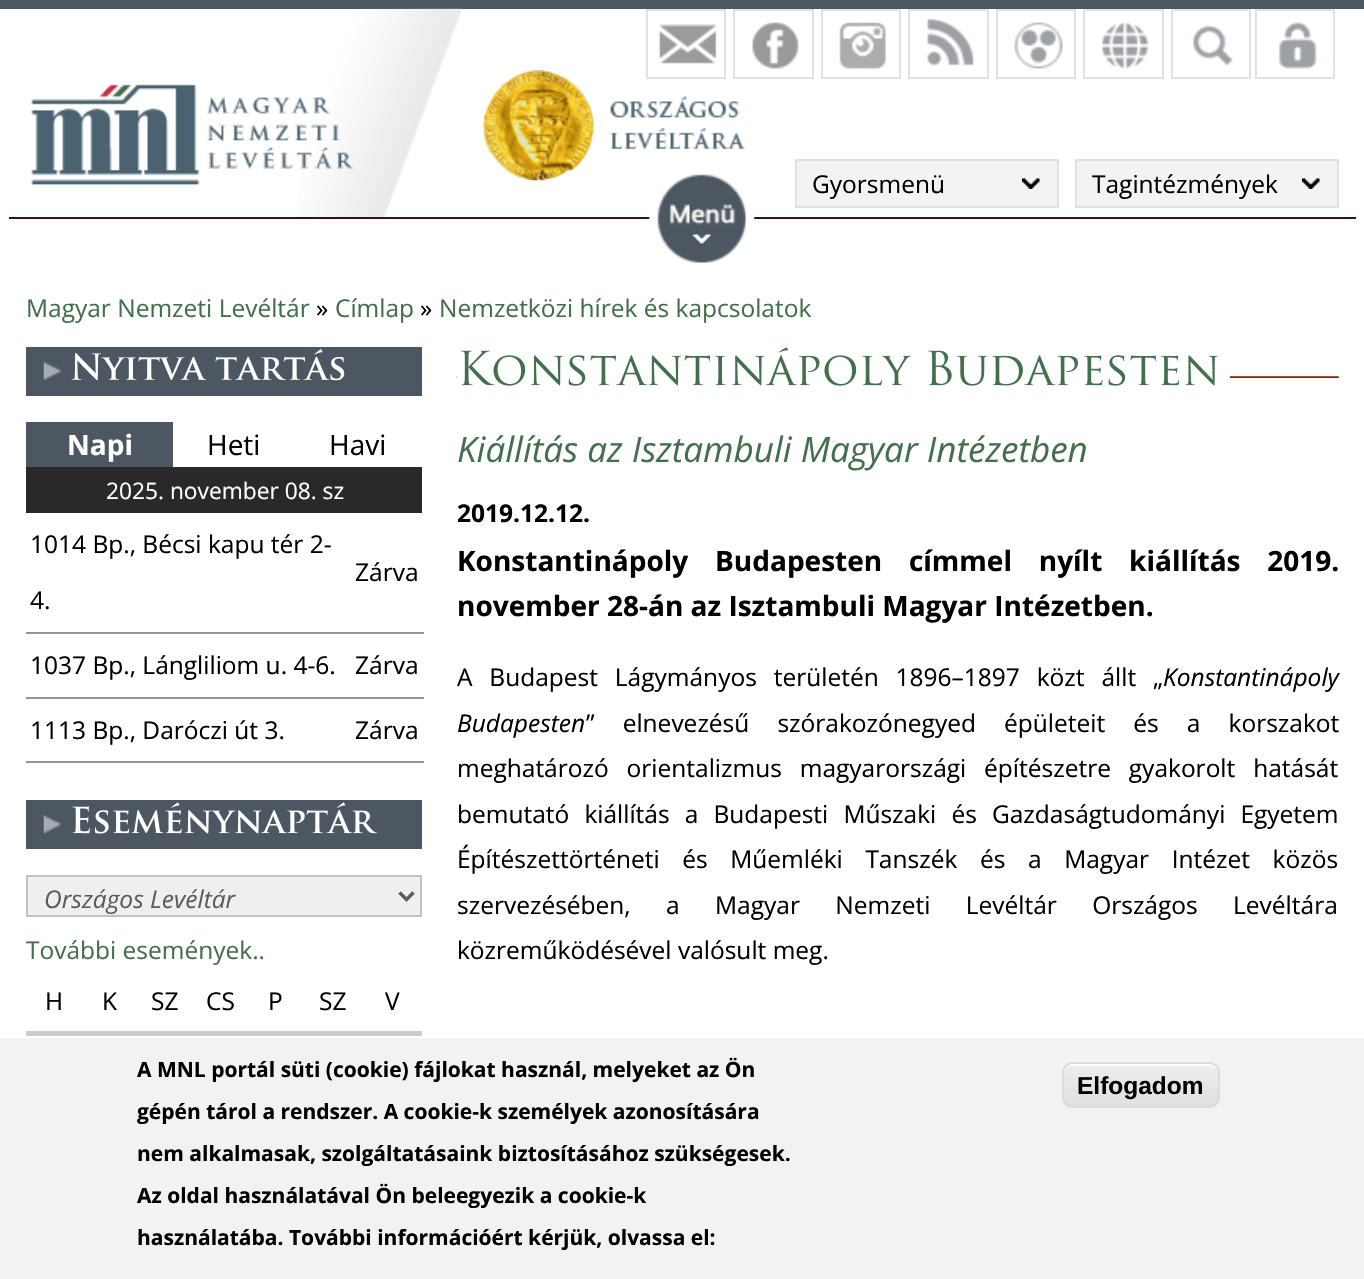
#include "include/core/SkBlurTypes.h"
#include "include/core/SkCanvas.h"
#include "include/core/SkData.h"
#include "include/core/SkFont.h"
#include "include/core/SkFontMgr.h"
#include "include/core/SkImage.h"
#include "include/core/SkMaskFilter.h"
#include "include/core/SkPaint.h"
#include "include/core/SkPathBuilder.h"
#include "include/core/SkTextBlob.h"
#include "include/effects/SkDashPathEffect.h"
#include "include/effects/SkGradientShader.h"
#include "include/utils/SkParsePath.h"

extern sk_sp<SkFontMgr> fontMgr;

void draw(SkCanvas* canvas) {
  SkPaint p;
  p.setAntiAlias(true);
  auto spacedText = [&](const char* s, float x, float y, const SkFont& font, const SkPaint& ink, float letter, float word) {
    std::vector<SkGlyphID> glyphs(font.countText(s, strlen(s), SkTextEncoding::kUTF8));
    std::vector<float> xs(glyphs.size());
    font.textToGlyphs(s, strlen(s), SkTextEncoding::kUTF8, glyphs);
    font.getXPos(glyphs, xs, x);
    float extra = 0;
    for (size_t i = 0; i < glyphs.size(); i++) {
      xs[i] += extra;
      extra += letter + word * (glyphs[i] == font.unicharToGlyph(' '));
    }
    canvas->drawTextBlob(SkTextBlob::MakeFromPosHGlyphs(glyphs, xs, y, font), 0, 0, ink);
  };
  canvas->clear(SK_ColorWHITE);
  p.setColor(SkColorSetRGB(77, 87, 98));
  canvas->drawRect(SkRect::MakeLTRB(0, 0, 1364, 9), p);
  p.setColor(SkColorSetRGB(54, 19, 15));
  canvas->drawRect(SkRect::MakeLTRB(9, 217, 1356, 219), p);
  canvas->drawImageRect(SkImages::DeferredFromEncodedData(SkData::MakeFromFileName("images/12.png")), SkRect::MakeLTRB(482, 70, 745, 181), SkSamplingOptions());
  canvas->drawImageRect(SkImages::DeferredFromEncodedData(SkData::MakeFromFileName("images/1.png")), SkRect::MakeLTRB(649, 174, 755, 263), SkSamplingOptions());
  canvas->drawImageRect(SkImages::DeferredFromEncodedData(SkData::MakeFromFileName("images/2.png")), SkRect::MakeLTRB(297, 8, 462, 217), SkSamplingOptions());
  canvas->drawImageRect(SkImages::DeferredFromEncodedData(SkData::MakeFromFileName("images/3.png")), SkRect::MakeLTRB(659, 24, 717, 64), SkSamplingOptions());
  p.setStyle(SkPaint::kStroke_Style);
  p.setStrokeWidth(2);
  p.setColor(SkColorSetRGB(225, 225, 225));
  canvas->drawRect(SkRect::MakeLTRB(647, 10, 725, 78), p);
  canvas->drawImageRect(SkImages::DeferredFromEncodedData(SkData::MakeFromFileName("images/4.png")), SkRect::MakeLTRB(752, 22, 799, 69), SkSamplingOptions());
  canvas->drawRect(SkRect::MakeLTRB(734, 10, 813, 78), p);
  canvas->drawImageRect(SkImages::DeferredFromEncodedData(SkData::MakeFromFileName("images/5.png")), SkRect::MakeLTRB(839, 22, 886, 69), SkSamplingOptions());
  canvas->drawRect(SkRect::MakeLTRB(822, 10, 900, 78), p);
  canvas->drawImageRect(SkImages::DeferredFromEncodedData(SkData::MakeFromFileName("images/6.png")), SkRect::MakeLTRB(927, 18, 974, 66), SkSamplingOptions());
  canvas->drawRect(SkRect::MakeLTRB(909, 10, 988, 78), p);
  canvas->drawImageRect(SkImages::DeferredFromEncodedData(SkData::MakeFromFileName("images/7.png")), SkRect::MakeLTRB(1014, 22, 1063, 69), SkSamplingOptions());
  canvas->drawRect(SkRect::MakeLTRB(997, 10, 1075, 78), p);
  canvas->drawImageRect(SkImages::DeferredFromEncodedData(SkData::MakeFromFileName("images/8.png")), SkRect::MakeLTRB(1102, 22, 1149, 69), SkSamplingOptions());
  canvas->drawRect(SkRect::MakeLTRB(1084, 10, 1163, 78), p);
  canvas->drawImageRect(SkImages::DeferredFromEncodedData(SkData::MakeFromFileName("images/9.png")), SkRect::MakeLTRB(1193, 25, 1233, 66), SkSamplingOptions());
  canvas->drawRect(SkRect::MakeLTRB(1172, 10, 1250, 78), p);
  canvas->drawImageRect(SkImages::DeferredFromEncodedData(SkData::MakeFromFileName("images/10.png")), SkRect::MakeLTRB(1278, 22, 1317, 69), SkSamplingOptions());
  canvas->drawRect(SkRect::MakeLTRB(1256, 10, 1334, 78), p);
  canvas->drawImageRect(SkImages::DeferredFromEncodedData(SkData::MakeFromFileName("images/11.png")), SkRect::MakeLTRB(30, 84, 354, 185), SkSamplingOptions());
  p.setStyle(SkPaint::kFill_Style);
  p.setColor(SkColorSetRGB(243, 243, 243));
  canvas->drawRect(SkRect::MakeLTRB(797, 161, 1057, 206), p);
  canvas->drawImageRect(SkImages::DeferredFromEncodedData(SkData::MakeFromFileName("images/13.png")), SkRect::MakeLTRB(1022, 178, 1040, 189), SkSamplingOptions());
  p.setStyle(SkPaint::kStroke_Style);
  p.setColor(SkColorSetRGB(225, 225, 225));
  canvas->drawRect(SkRect::MakeLTRB(796, 160, 1058, 207), p);
  p.setStyle(SkPaint::kFill_Style);
  p.setColor(SkColorSetRGB(243, 243, 243));
  canvas->drawRect(SkRect::MakeLTRB(1077, 161, 1337, 206), p);
  canvas->drawImageRect(SkImages::DeferredFromEncodedData(SkData::MakeFromFileName("images/14.png")), SkRect::MakeLTRB(1302, 178, 1320, 189), SkSamplingOptions());
  p.setStyle(SkPaint::kStroke_Style);
  p.setColor(SkColorSetRGB(225, 225, 225));
  canvas->drawRect(SkRect::MakeLTRB(1076, 160, 1338, 207), p);
  p.setStyle(SkPaint::kFill_Style);
  p.setColor(SkColorSetRGB(77, 87, 98));
  canvas->drawRect(SkRect::MakeLTRB(26, 347, 422, 396), p);
  canvas->drawImageRect(SkImages::DeferredFromEncodedData(SkData::MakeFromFileName("images/15.png")), SkRect::MakeLTRB(43, 362, 62, 380), SkSamplingOptions());
  canvas->drawImageRect(SkImages::DeferredFromEncodedData(SkData::MakeFromFileName("images/16.png")), SkRect::MakeLTRB(71, 349, 345, 381), SkSamplingOptions());
  canvas->drawRect(SkRect::MakeLTRB(26, 422, 173, 467), p);
  p.setColor(SkColorSetRGB(41, 41, 41));
  canvas->drawRect(SkRect::MakeLTRB(26, 467, 422, 513), p);
  p.setColor(SkColorSetRGB(148, 148, 148));
  canvas->drawRect(SkRect::MakeLTRB(26, 632, 424, 634), p);
  canvas->drawRect(SkRect::MakeLTRB(26, 697, 424, 699), p);
  canvas->drawRect(SkRect::MakeLTRB(26, 761, 424, 763), p);
  p.setColor(SkColorSetRGB(77, 87, 98));
  canvas->drawRect(SkRect::MakeLTRB(26, 800, 422, 849), p);
  canvas->drawImageRect(SkImages::DeferredFromEncodedData(SkData::MakeFromFileName("images/17.png")), SkRect::MakeLTRB(43, 815, 62, 833), SkSamplingOptions());
  canvas->drawImageRect(SkImages::DeferredFromEncodedData(SkData::MakeFromFileName("images/18.png")), SkRect::MakeLTRB(72, 802, 377, 834), SkSamplingOptions());
  p.setColor(SkColorSetRGB(239, 239, 239));
  canvas->drawRect(SkRect::MakeLTRB(27, 876, 421, 916), p);
  p.setStyle(SkPaint::kStroke_Style);
  p.setColor(SkColorSetRGB(193, 193, 193));
  canvas->drawRect(SkRect::MakeLTRB(27, 876, 421, 916), p);
  p.setStrokeWidth(3.5f);
  p.setColor(SkColorSetRGB(92, 92, 92));
  canvas->drawPath(SkPathBuilder().moveTo(399.5f, 892.5f).lineTo(406.5f, 899.5f).lineTo(413.5f, 892.5f).detach(), p);
  p.setStyle(SkPaint::kFill_Style);
  p.setColor(SkColorSetRGB(204, 204, 204));
  canvas->drawRect(SkRect::MakeLTRB(26, 1031, 422, 1036), p);
  canvas->drawImageRect(SkImages::DeferredFromEncodedData(SkData::MakeFromFileName("images/19.png")), SkRect::MakeLTRB(456, 376, 1339, 378), SkSamplingOptions());
  p.setColor(SK_ColorWHITE);
  canvas->drawRect(SkRect::MakeLTRB(457, 376, 1230, 378), p);
  canvas->drawImageRect(SkImages::DeferredFromEncodedData(SkData::MakeFromFileName("images/20.png")), SkRect::MakeLTRB(461, 347, 1218, 386), SkSamplingOptions());
  p.setColor(SkColorSetRGB(242, 242, 242));
  canvas->drawRect(SkRect::MakeLTRB(0, 1038, 1364, 1279), p);
  canvas->save();
  canvas->clipPath(SkPathBuilder().moveTo(1073, 1062).lineTo(1209, 1062).cubicTo(1215, 1062, 1220, 1067, 1220, 1073).lineTo(1220, 1097).cubicTo(1220, 1103, 1215, 1108, 1209, 1108).lineTo(1073, 1108).cubicTo(1067, 1108, 1062, 1103, 1062, 1097).lineTo(1062, 1073).cubicTo(1062, 1067, 1067, 1062, 1073, 1062).close().detach(), true);
  {
    const SkColor colors[] = {SkColorSetRGB(237, 237, 237), SkColorSetRGB(223, 223, 223)};
    const float stops[] = {0.05f, 1};
    const SkPoint ends[] = {{1141, 1064}, {1141, 1106}};
    p.setShader(SkGradientShader::MakeLinear(ends, colors, stops, 2, SkTileMode::kClamp));
    p.setAlpha(255);
  }
  canvas->drawRect(SkRect::MakeLTRB(1062, 1064, 1220, 1106), p);
  canvas->restore();
  p.setShader(nullptr);
  p.setColor(SK_ColorWHITE);
  canvas->drawPath(SkPathBuilder().moveTo(1073, 1066).lineTo(1209, 1066).cubicTo(1214, 1066, 1218, 1070, 1218, 1074).cubicTo(1218, 1058, 1195, 1064, 1186, 1064).lineTo(1096, 1064).cubicTo(1087, 1064, 1064, 1058, 1064, 1074).cubicTo(1064, 1070, 1068, 1066, 1073, 1066).close().detach(), p);
  p.setStyle(SkPaint::kStroke_Style);
  p.setStrokeWidth(2);
  p.setColor(SkColorSetRGB(220, 220, 220));
  canvas->drawRoundRect(SkRect::MakeLTRB(1063, 1063, 1219, 1107), 10, 10, p);
  SkFont font1(fontMgr->matchFamilyStyle("Open Sans", SkFontStyle::Normal()), 24.5f);
  font1.setSubpixel(true);
  p.setStyle(SkPaint::kFill_Style);
  p.setColor(SK_ColorBLACK);
  canvas->drawString("Gyorsmenü", 812, 193, font1, p);
  canvas->drawString("Tagintézmények", 1092, 193, font1, p);
  p.setColor(SkColorSetRGB(67, 111, 77));
  canvas->drawString("Magyar Nemzeti Levéltár", 26, 317, font1, p);
  p.setColor(SK_ColorBLACK);
  canvas->drawString("»", 316, 317, font1, p);
  p.setColor(SkColorSetRGB(67, 111, 77));
  canvas->drawString("Címlap", 335, 317, font1, p);
  p.setColor(SK_ColorBLACK);
  canvas->drawString("»", 420, 317, font1, p);
  p.setColor(SkColorSetRGB(67, 111, 77));
  canvas->drawString("Nemzetközi hírek és kapcsolatok", 439, 317, font1, p);
  SkFont font2(fontMgr->matchFamilyStyle("Open Sans", SkFontStyle::Bold()), 28);
  font2.setSubpixel(true);
  p.setColor(SK_ColorWHITE);
  canvas->drawString("Napi", 67, 455, font2, p);
  SkFont font3(fontMgr->matchFamilyStyle("Open Sans", SkFontStyle::Normal()), 28);
  font3.setSubpixel(true);
  p.setColor(SK_ColorBLACK);
  canvas->drawString("Heti", 207, 455, font3, p);
  canvas->drawString("Havi", 329, 455, font3, p);
  SkFont font4(fontMgr->matchFamilyStyle("Open Sans", SkFontStyle::Normal()), 22.75f);
  font4.setSubpixel(true);
  p.setColor(SK_ColorWHITE);
  canvas->drawString("2025. november 08. sz", 106, 499, font4, p);
  p.setColor(SK_ColorBLACK);
  canvas->drawString("1014 Bp., Bécsi kapu tér 2-", 30, 553, font1, p);
  canvas->drawString("4.", 30, 609, font1, p);
  canvas->drawString("Zárva", 355, 581, font1, p);
  canvas->drawString("1037 Bp., Lángliliom u. 4-6.", 30, 674, font1, p);
  canvas->drawString("Zárva", 355, 674, font1, p);
  canvas->drawString("1113 Bp., Daróczi út 3.", 30, 739, font1, p);
  canvas->drawString("Zárva", 355, 739, font1, p);
  SkFont font5(fontMgr->matchFamilyStyle("Open Sans", SkFontStyle::Italic()), 24.5f);
  font5.setSubpixel(true);
  p.setColor(SkColorSetRGB(92, 92, 92));
  canvas->drawString("Országos Levéltár", 44, 908, font5, p);
  p.setColor(SkColorSetRGB(67, 111, 77));
  canvas->drawString("További események..", 26, 959, font1, p);
  p.setColor(SK_ColorBLACK);
  canvas->drawString("H", 45, 1010, font1, p);
  canvas->drawString("K", 102, 1010, font1, p);
  canvas->drawString("SZ", 151, 1010, font1, p);
  canvas->drawString("CS", 206, 1010, font1, p);
  canvas->drawString("P", 268, 1010, font1, p);
  canvas->drawString("SZ", 319, 1010, font1, p);
  canvas->drawString("V", 385, 1010, font1, p);
  SkFont font6(fontMgr->matchFamilyStyle("Open Sans", SkFontStyle::Italic()), 35);
  font6.setSubpixel(true);
  p.setColor(SkColorSetRGB(67, 111, 77));
  canvas->drawString("Kiállítás az Isztambuli Magyar Intézetben", 457, 462, font6, p);
  SkFont font7(fontMgr->matchFamilyStyle("Open Sans", SkFontStyle::Bold()), 24.5f);
  font7.setSubpixel(true);
  p.setColor(SK_ColorBLACK);
  canvas->drawString("2019.12.12.", 457, 522, font7, p);
  spacedText("Konstantinápoly Budapesten címmel nyílt kiállítás 2019.", 457, 571, font2, p, 0, 19.5f);
  canvas->drawString("november 28-án az Isztambuli Magyar Intézetben.", 457, 616, font2, p);
  spacedText("A Budapest Lágymányos területén 1896–1897 közt állt „", 457, 686, font1, p, 0, 10.5f);
  canvas->drawString("Konstantinápoly", 1163, 686, font5, p);
  canvas->drawString("Budapesten", 457, 732, font5, p);
  spacedText("” elnevezésű szórakozónegyed épületeit és a korszakot", 586, 732, font1, p, 0, 21.75f);
  spacedText("meghatározó orientalizmus magyarországi építészetre gyakorolt hatását", 457, 777, font1, p, 0, 11.5f);
  spacedText("bemutató kiállítás a Budapesti Műszaki és Gazdaságtudományi Egyetem", 457, 823, font1, p, 0, 8.75f);
  spacedText("Építészettörténeti és Műemléki Tanszék és a Magyar Intézet közös", 457, 868, font1, p, 0, 16.25f);
  spacedText("szervezésében, a Magyar Nemzeti Levéltár Országos Levéltára", 457, 914, font1, p, 0, 29);
  canvas->drawString("közreműködésével valósult meg.", 457, 959, font1, p);
  SkFont font8(fontMgr->matchFamilyStyle("Open Sans", SkFontStyle::Bold()), 21);
  font8.setSubpixel(true);
  canvas->drawString("A MNL portál süti (cookie) fájlokat használ, melyeket az Ön", 137, 1077, font8, p);
  canvas->drawString("gépén tárol a rendszer. A cookie-k személyek azonosítására", 137, 1119, font8, p);
  canvas->drawString("nem alkalmasak, szolgáltatásaink biztosításához szükségesek.", 137, 1161, font8, p);
  canvas->drawString("Az oldal használatával Ön beleegyezik a cookie-k", 137, 1203, font8, p);
  canvas->drawString("használatába. További információért kérjük, olvassa el:", 137, 1245, font8, p);
  SkFont font9(fontMgr->matchFamilyStyle("Liberation Sans", SkFontStyle::Bold()), 24.5f);
  font9.setSubpixel(true);
  canvas->drawString("Elfogadom", 1077, 1094, font9, p);
}
